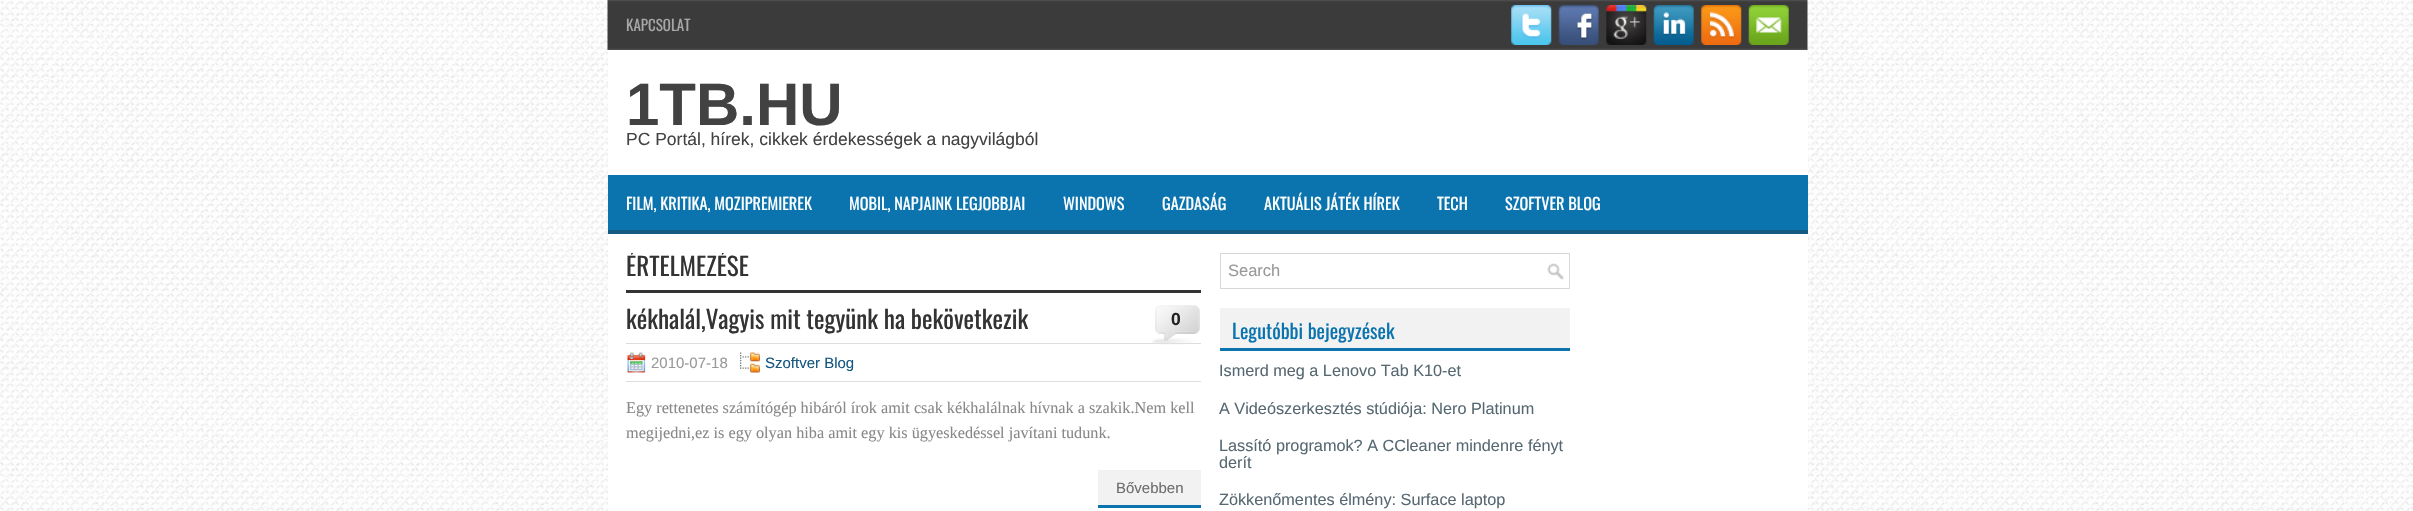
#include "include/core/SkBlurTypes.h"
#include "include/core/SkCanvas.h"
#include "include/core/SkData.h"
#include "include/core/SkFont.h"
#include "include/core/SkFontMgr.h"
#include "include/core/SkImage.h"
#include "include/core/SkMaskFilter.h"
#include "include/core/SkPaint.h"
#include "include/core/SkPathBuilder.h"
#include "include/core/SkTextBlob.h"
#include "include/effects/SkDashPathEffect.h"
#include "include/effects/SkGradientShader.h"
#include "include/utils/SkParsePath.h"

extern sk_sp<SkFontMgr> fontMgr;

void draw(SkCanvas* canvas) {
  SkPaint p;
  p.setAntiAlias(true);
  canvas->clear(SK_ColorWHITE);
  canvas->drawImageRect(SkImages::DeferredFromEncodedData(SkData::MakeFromFileName("images/1.png")), SkRect::MakeLTRB(0, 0, 2413, 511), SkSamplingOptions());
  canvas->drawImageRect(SkImages::DeferredFromEncodedData(SkData::MakeFromFileName("images/2.png")), SkRect::MakeLTRB(607, 0, 1808, 50), SkSamplingOptions());
  canvas->drawImageRect(SkImages::DeferredFromEncodedData(SkData::MakeFromFileName("images/3.png")), SkRect::MakeLTRB(1511, 5, 1552, 45), SkSamplingOptions());
  canvas->drawImageRect(SkImages::DeferredFromEncodedData(SkData::MakeFromFileName("images/4.png")), SkRect::MakeLTRB(1558, 5, 1599, 45), SkSamplingOptions());
  canvas->drawImageRect(SkImages::DeferredFromEncodedData(SkData::MakeFromFileName("images/5.png")), SkRect::MakeLTRB(1606, 5, 1647, 45), SkSamplingOptions());
  canvas->drawImageRect(SkImages::DeferredFromEncodedData(SkData::MakeFromFileName("images/6.png")), SkRect::MakeLTRB(1653, 5, 1694, 45), SkSamplingOptions());
  canvas->drawImageRect(SkImages::DeferredFromEncodedData(SkData::MakeFromFileName("images/7.png")), SkRect::MakeLTRB(1701, 5, 1742, 45), SkSamplingOptions());
  canvas->drawImageRect(SkImages::DeferredFromEncodedData(SkData::MakeFromFileName("images/8.png")), SkRect::MakeLTRB(1748, 5, 1789, 45), SkSamplingOptions());
  p.setColor(SK_ColorWHITE);
  canvas->drawRect(SkRect::MakeLTRB(608, 50, 1808, 175), p);
  p.setColor(SkColorSetRGB(11, 116, 174));
  canvas->drawRect(SkRect::MakeLTRB(608, 175, 1808, 230), p);
  p.setColor(SkColorSetRGB(19, 91, 130));
  canvas->drawRect(SkRect::MakeLTRB(608, 230, 1808, 234), p);
  p.setColor(SK_ColorWHITE);
  canvas->drawRect(SkRect::MakeLTRB(608, 234, 1808, 511), p);
  p.setColor(SkColorSetRGB(51, 51, 51));
  canvas->drawRect(SkRect::MakeLTRB(626, 290, 1201, 293), p);
  p.setColor(SkColorSetRGB(221, 221, 221));
  canvas->drawRect(SkRect::MakeLTRB(626, 343, 1201, 344), p);
  canvas->drawImageRect(SkImages::DeferredFromEncodedData(SkData::MakeFromFileName("images/9.png")), SkRect::MakeLTRB(1152, 305, 1200, 345), SkSamplingOptions());
  canvas->drawRect(SkRect::MakeLTRB(626, 381, 1201, 382), p);
  canvas->drawImageRect(SkImages::DeferredFromEncodedData(SkData::MakeFromFileName("images/10.png")), SkRect::MakeLTRB(627, 352, 646, 373), SkSamplingOptions());
  canvas->drawImageRect(SkImages::DeferredFromEncodedData(SkData::MakeFromFileName("images/11.png")), SkRect::MakeLTRB(740, 352, 760, 373), SkSamplingOptions());
  p.setColor(SkColorSetRGB(242, 242, 242));
  canvas->drawRect(SkRect::MakeLTRB(1098, 470, 1201, 505), p);
  p.setColor(SkColorSetRGB(11, 116, 174));
  canvas->drawRect(SkRect::MakeLTRB(1098, 505, 1201, 508), p);
  canvas->drawImageRect(SkImages::DeferredFromEncodedData(SkData::MakeFromFileName("images/12.png")), SkRect::MakeLTRB(1547, 263, 1564, 280), SkSamplingOptions());
  p.setStyle(SkPaint::kStroke_Style);
  p.setStrokeWidth(1);
  p.setColor(SkColorSetRGB(216, 216, 216));
  canvas->drawRect(SkRect::MakeLTRB(1220.5f, 253.5f, 1569.5f, 288.5f), p);
  p.setStyle(SkPaint::kFill_Style);
  p.setColor(SkColorSetRGB(242, 242, 242));
  canvas->drawRect(SkRect::MakeLTRB(1220, 308, 1570, 348), p);
  p.setColor(SkColorSetRGB(11, 116, 174));
  canvas->drawRect(SkRect::MakeLTRB(1220, 348, 1570, 351), p);
  SkFont font1(fontMgr->matchFamilyStyle("Oswald", SkFontStyle::Normal()), 15);
  font1.setSubpixel(true);
  p.setColor(SkColorSetRGB(167, 167, 167));
  canvas->drawString("KAPCSOLAT", 626, 31, font1, p);
  SkFont font2(fontMgr->matchFamilyStyle("Liberation Sans", SkFontStyle::Bold()), 60);
  font2.setSubpixel(true);
  p.setColor(SkColorSetRGB(66, 66, 66));
  canvas->drawString("1TB.HU", 626, 125, font2, p);
  SkFont font3(fontMgr->matchFamilyStyle("Liberation Sans", SkFontStyle::Normal()), 17.5f);
  font3.setSubpixel(true);
  canvas->drawString("PC Portál, hírek, cikkek érdekességek a nagyvilágból", 626, 145, font3, p);
  SkFont font4(fontMgr->matchFamilyStyle("Oswald", SkFontStyle::Normal()), 16.25f);
  font4.setSubpixel(true);
  p.setColor(SK_ColorWHITE);
  canvas->drawString("FILM, KRITIKA, MOZIPREMIEREK", 626, 210, font4, p);
  canvas->drawString("MOBIL, NAPJAINK LEGJOBBJAI", 849, 210, font4, p);
  canvas->drawString("WINDOWS", 1063, 210, font4, p);
  canvas->drawString("GAZDASÁG", 1162, 210, font4, p);
  canvas->drawString("AKTUÁLIS JÁTÉK HÍREK", 1264, 210, font4, p);
  canvas->drawString("TECH", 1437, 210, font4, p);
  canvas->drawString("SZOFTVER BLOG", 1505, 210, font4, p);
  canvas->save();
  canvas->clipRect(SkRect::MakeLTRB(626, 253, 1201, 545));
  SkFont font5(fontMgr->matchFamilyStyle("Oswald", SkFontStyle::Normal()), 25);
  font5.setSubpixel(true);
  p.setColor(SkColorSetRGB(51, 51, 51));
  canvas->drawString("ÉRTELMEZÉSE", 626, 276, font5, p);
  canvas->restore();
  canvas->drawString("kékhalál,Vagyis mit tegyünk ha bekövetkezik", 626, 329, font5, p);
  SkFont font6(fontMgr->matchFamilyStyle("Liberation Sans", SkFontStyle::Bold()), 17.5f);
  font6.setSubpixel(true);
  p.setColor(SkColorSetRGB(34, 34, 34));
  canvas->drawString("0", 1171, 325, font6, p);
  SkFont font7(fontMgr->matchFamilyStyle("Liberation Sans", SkFontStyle::Normal()), 15);
  font7.setSubpixel(true);
  p.setColor(SkColorSetRGB(153, 153, 153));
  canvas->drawString("2010-07-18", 651, 368, font7, p);
  p.setColor(SkColorSetRGB(21, 87, 128));
  canvas->drawString("Szoftver Blog", 765, 368, font7, p);
  SkFont font8(fontMgr->matchFamilyStyle("Liberation Serif", SkFontStyle::Normal()), 16.25f);
  font8.setSubpixel(true);
  p.setColor(SkColorSetRGB(136, 136, 136));
  canvas->drawString("Egy rettenetes számítógép hibáról írok amit csak kékhalálnak hívnak a szakik.Nem kell", 626, 413, font8, p);
  canvas->drawString("megijedni,ez is egy olyan hiba amit egy kis ügyeskedéssel javítani tudunk.", 626, 438, font8, p);
  p.setColor(SkColorSetRGB(109, 109, 109));
  canvas->drawString("Bővebben", 1116, 493, font7, p);
  SkFont font9(fontMgr->matchFamilyStyle("Liberation Sans", SkFontStyle::Normal()), 16.5f);
  font9.setSubpixel(true);
  p.setColor(SkColorSetRGB(153, 153, 153));
  canvas->drawString("Search", 1228, 276, font9, p);
  SkFont font10(fontMgr->matchFamilyStyle("Oswald", SkFontStyle::Normal()), 20);
  font10.setSubpixel(true);
  p.setColor(SkColorSetRGB(11, 116, 174));
  canvas->drawString("Legutóbbi bejegyzések", 1232, 339, font10, p);
  SkFont font11(fontMgr->matchFamilyStyle("Liberation Sans", SkFontStyle::Normal()), 16.25f);
  font11.setSubpixel(true);
  p.setColor(SkColorSetRGB(86, 104, 113));
  canvas->drawString("Ismerd meg a Lenovo Tab K10-et", 1219, 376, font11, p);
  canvas->drawString("A Videószerkesztés stúdiója: Nero Platinum", 1219, 414, font11, p);
  canvas->drawString("Lassító programok? A CCleaner mindenre fényt", 1219, 451, font11, p);
  canvas->drawString("derít", 1219, 468, font11, p);
  canvas->drawString("Zökkenőmentes élmény: Surface laptop", 1219, 505, font11, p);
}
